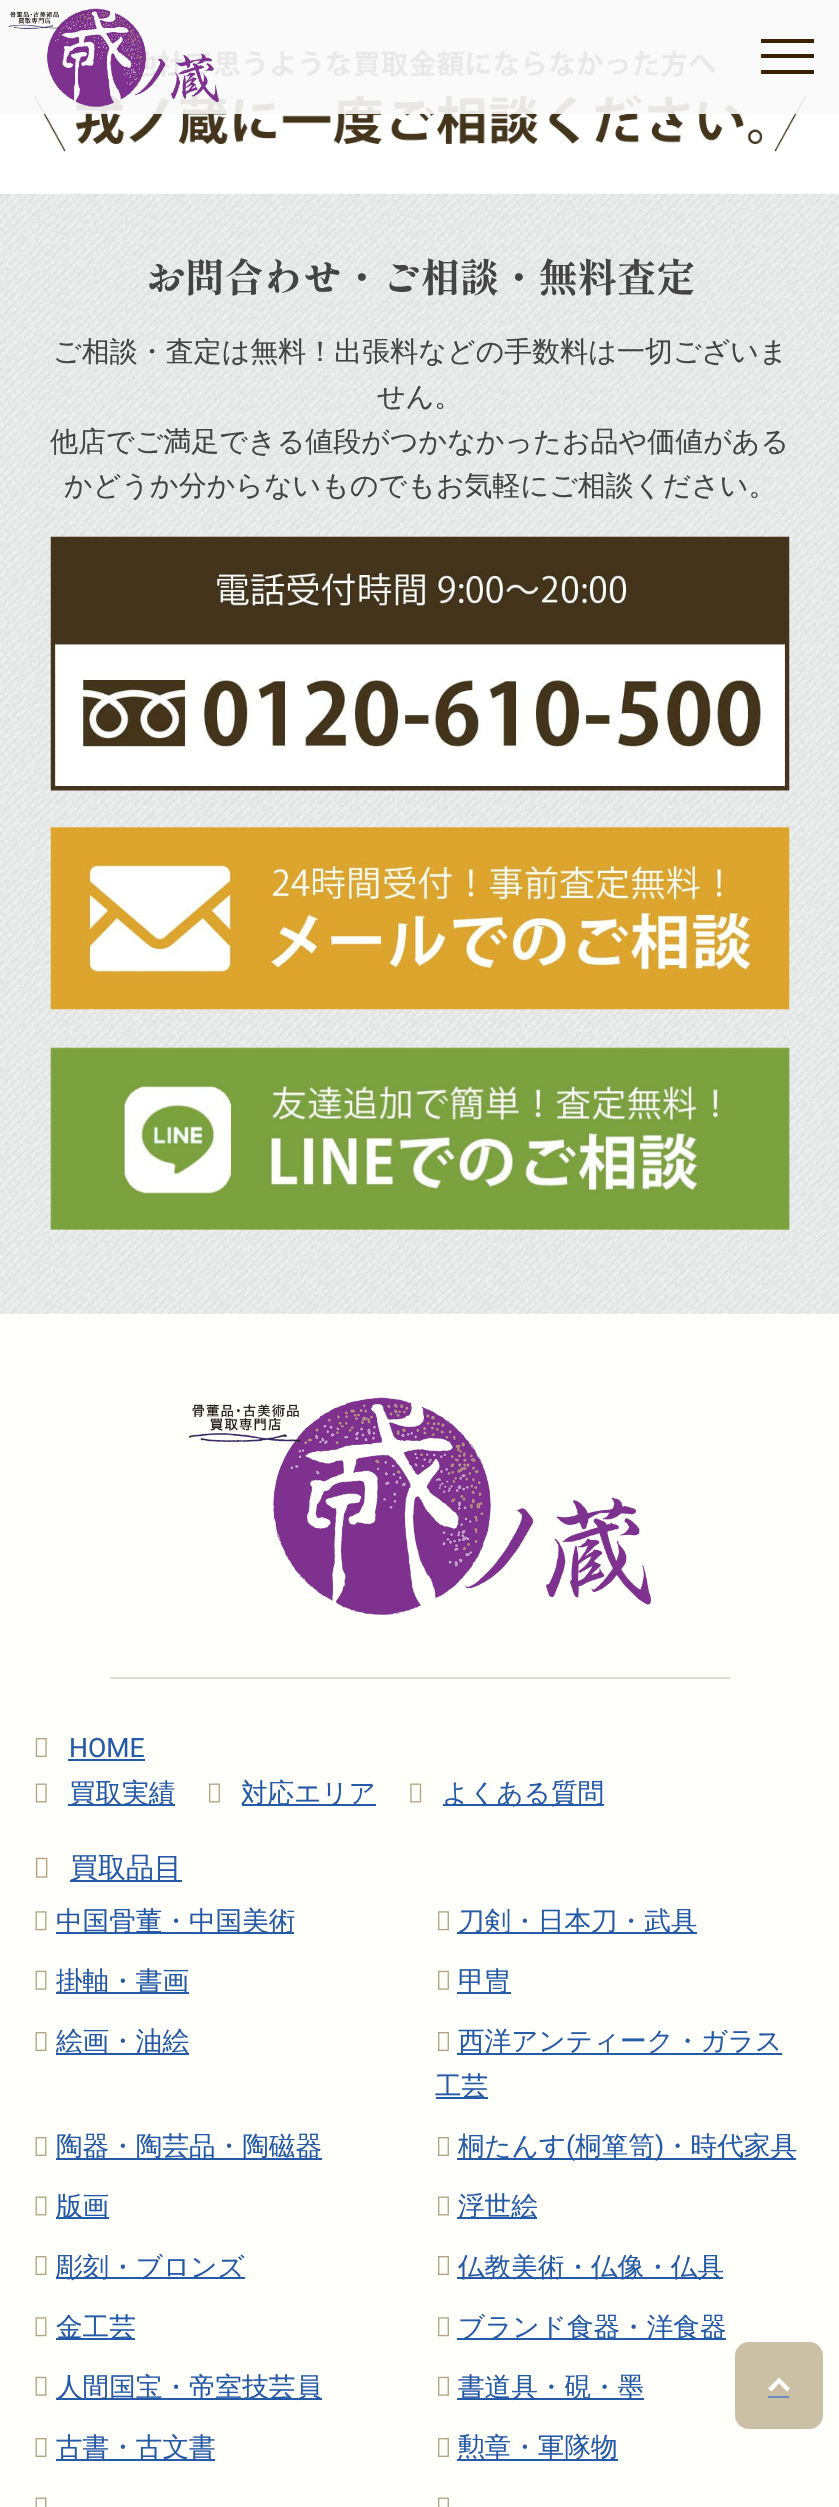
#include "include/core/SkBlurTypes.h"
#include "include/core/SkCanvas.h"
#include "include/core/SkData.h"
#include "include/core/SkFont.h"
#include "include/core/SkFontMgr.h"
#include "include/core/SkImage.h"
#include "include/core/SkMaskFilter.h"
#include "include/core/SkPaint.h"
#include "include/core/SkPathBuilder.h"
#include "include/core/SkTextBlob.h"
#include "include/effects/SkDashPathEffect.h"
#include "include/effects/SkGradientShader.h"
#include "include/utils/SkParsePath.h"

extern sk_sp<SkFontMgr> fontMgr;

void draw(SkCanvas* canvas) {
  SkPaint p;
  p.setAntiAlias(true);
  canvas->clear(SK_ColorWHITE);
  canvas->drawImageRect(SkImages::DeferredFromEncodedData(SkData::MakeFromFileName("images/2.png")), SkRect::MakeLTRB(33, 50, 807, 152), SkSamplingOptions());
  p.setColor(SkColorSetARGB(230, 250, 250, 250));
  canvas->drawRect(SkRect::MakeLTRB(0, 0, 839, 114), p);
  canvas->drawImageRect(SkImages::DeferredFromEncodedData(SkData::MakeFromFileName("images/1.png")), SkRect::MakeLTRB(8, 8, 219, 107), SkSamplingOptions());
  p.setColor(SkColorSetRGB(59, 34, 2));
  canvas->drawRect(SkRect::MakeLTRB(761, 39, 814, 43), p);
  canvas->drawRect(SkRect::MakeLTRB(761, 54, 814, 58), p);
  canvas->drawRect(SkRect::MakeLTRB(761, 70, 814, 74), p);
  canvas->drawImageRect(SkImages::DeferredFromEncodedData(SkData::MakeFromFileName("images/3.png")), SkRect::MakeLTRB(0, 193, 839, 1314), SkSamplingOptions());
  canvas->drawImageRect(SkImages::DeferredFromEncodedData(SkData::MakeFromFileName("images/4.png")), SkRect::MakeLTRB(50, 536, 790, 791), SkSamplingOptions());
  canvas->drawImageRect(SkImages::DeferredFromEncodedData(SkData::MakeFromFileName("images/5.png")), SkRect::MakeLTRB(50, 827, 790, 1010), SkSamplingOptions());
  canvas->drawImageRect(SkImages::DeferredFromEncodedData(SkData::MakeFromFileName("images/6.png")), SkRect::MakeLTRB(50, 1047, 790, 1230), SkSamplingOptions());
  p.setColor(SkColorSetRGB(255, 255, 251));
  canvas->drawRect(SkRect::MakeLTRB(0, 1314, 839, 2507), p);
  canvas->drawImageRect(SkImages::DeferredFromEncodedData(SkData::MakeFromFileName("images/7.png")), SkRect::MakeLTRB(189, 1397, 651, 1615), SkSamplingOptions());
  p.setColor(SkColorSetRGB(221, 221, 213));
  canvas->drawRect(SkRect::MakeLTRB(110, 1677, 730, 1679), p);
  canvas->drawImageRect(SkImages::DeferredFromEncodedData(SkData::MakeFromFileName("images/8.png")), SkRect::MakeLTRB(35, 1738, 47, 1757), SkSamplingOptions());
  p.setColor(SkColorSetRGB(37, 90, 166));
  canvas->drawRect(SkRect::MakeLTRB(68, 1759, 145, 1761), p);
  canvas->drawImageRect(SkImages::DeferredFromEncodedData(SkData::MakeFromFileName("images/9.png")), SkRect::MakeLTRB(35, 1783, 47, 1803), SkSamplingOptions());
  canvas->drawRect(SkRect::MakeLTRB(68, 1804, 175, 1806), p);
  canvas->drawImageRect(SkImages::DeferredFromEncodedData(SkData::MakeFromFileName("images/10.png")), SkRect::MakeLTRB(209, 1783, 220, 1803), SkSamplingOptions());
  canvas->drawRect(SkRect::MakeLTRB(242, 1804, 376, 1806), p);
  canvas->drawImageRect(SkImages::DeferredFromEncodedData(SkData::MakeFromFileName("images/11.png")), SkRect::MakeLTRB(410, 1783, 422, 1803), SkSamplingOptions());
  canvas->drawRect(SkRect::MakeLTRB(443, 1804, 604, 1806), p);
  canvas->drawImageRect(SkImages::DeferredFromEncodedData(SkData::MakeFromFileName("images/12.png")), SkRect::MakeLTRB(35, 1857, 48, 1878), SkSamplingOptions());
  canvas->drawRect(SkRect::MakeLTRB(70, 1880, 182, 1882), p);
  canvas->drawImageRect(SkImages::DeferredFromEncodedData(SkData::MakeFromFileName("images/13.png")), SkRect::MakeLTRB(35, 1911, 47, 1931), SkSamplingOptions());
  canvas->drawRect(SkRect::MakeLTRB(56, 1932, 294, 1934), p);
  canvas->drawImageRect(SkImages::DeferredFromEncodedData(SkData::MakeFromFileName("images/14.png")), SkRect::MakeLTRB(438, 1911, 449, 1931), SkSamplingOptions());
  canvas->drawRect(SkRect::MakeLTRB(457, 1932, 697, 1934), p);
  canvas->drawImageRect(SkImages::DeferredFromEncodedData(SkData::MakeFromFileName("images/15.png")), SkRect::MakeLTRB(35, 1970, 47, 1990), SkSamplingOptions());
  canvas->drawRect(SkRect::MakeLTRB(56, 1992, 189, 1994), p);
  canvas->drawImageRect(SkImages::DeferredFromEncodedData(SkData::MakeFromFileName("images/16.png")), SkRect::MakeLTRB(438, 1970, 449, 1990), SkSamplingOptions());
  canvas->drawRect(SkRect::MakeLTRB(457, 1992, 511, 1994), p);
  canvas->drawImageRect(SkImages::DeferredFromEncodedData(SkData::MakeFromFileName("images/17.png")), SkRect::MakeLTRB(35, 2032, 47, 2051), SkSamplingOptions());
  canvas->drawRect(SkRect::MakeLTRB(56, 2053, 189, 2055), p);
  canvas->drawImageRect(SkImages::DeferredFromEncodedData(SkData::MakeFromFileName("images/18.png")), SkRect::MakeLTRB(438, 2032, 449, 2051), SkSamplingOptions());
  canvas->drawRect(SkRect::MakeLTRB(457, 2053, 782, 2055), p);
  canvas->drawRect(SkRect::MakeLTRB(436, 2097, 488, 2099), p);
  canvas->drawImageRect(SkImages::DeferredFromEncodedData(SkData::MakeFromFileName("images/17.png")), SkRect::MakeLTRB(35, 2137, 47, 2156), SkSamplingOptions());
  canvas->drawRect(SkRect::MakeLTRB(56, 2158, 322, 2160), p);
  canvas->drawImageRect(SkImages::DeferredFromEncodedData(SkData::MakeFromFileName("images/18.png")), SkRect::MakeLTRB(438, 2137, 449, 2156), SkSamplingOptions());
  canvas->drawRect(SkRect::MakeLTRB(457, 2158, 796, 2160), p);
  canvas->drawImageRect(SkImages::DeferredFromEncodedData(SkData::MakeFromFileName("images/19.png")), SkRect::MakeLTRB(35, 2196, 47, 2216), SkSamplingOptions());
  canvas->drawRect(SkRect::MakeLTRB(56, 2217, 109, 2219), p);
  canvas->drawImageRect(SkImages::DeferredFromEncodedData(SkData::MakeFromFileName("images/20.png")), SkRect::MakeLTRB(438, 2196, 449, 2216), SkSamplingOptions());
  canvas->drawRect(SkRect::MakeLTRB(457, 2217, 537, 2219), p);
  canvas->drawImageRect(SkImages::DeferredFromEncodedData(SkData::MakeFromFileName("images/17.png")), SkRect::MakeLTRB(35, 2256, 47, 2275), SkSamplingOptions());
  canvas->drawRect(SkRect::MakeLTRB(56, 2277, 245, 2279), p);
  canvas->drawImageRect(SkImages::DeferredFromEncodedData(SkData::MakeFromFileName("images/18.png")), SkRect::MakeLTRB(438, 2256, 449, 2275), SkSamplingOptions());
  canvas->drawRect(SkRect::MakeLTRB(457, 2277, 723, 2279), p);
  canvas->drawImageRect(SkImages::DeferredFromEncodedData(SkData::MakeFromFileName("images/13.png")), SkRect::MakeLTRB(35, 2317, 47, 2337), SkSamplingOptions());
  canvas->drawRect(SkRect::MakeLTRB(56, 2338, 135, 2340), p);
  canvas->drawImageRect(SkImages::DeferredFromEncodedData(SkData::MakeFromFileName("images/14.png")), SkRect::MakeLTRB(438, 2317, 449, 2337), SkSamplingOptions());
  canvas->drawRect(SkRect::MakeLTRB(457, 2338, 726, 2340), p);
  canvas->drawImageRect(SkImages::DeferredFromEncodedData(SkData::MakeFromFileName("images/15.png")), SkRect::MakeLTRB(35, 2376, 47, 2396), SkSamplingOptions());
  canvas->drawRect(SkRect::MakeLTRB(56, 2398, 322, 2400), p);
  canvas->drawImageRect(SkImages::DeferredFromEncodedData(SkData::MakeFromFileName("images/16.png")), SkRect::MakeLTRB(438, 2376, 449, 2396), SkSamplingOptions());
  canvas->drawRect(SkRect::MakeLTRB(457, 2398, 644, 2400), p);
  canvas->drawImageRect(SkImages::DeferredFromEncodedData(SkData::MakeFromFileName("images/17.png")), SkRect::MakeLTRB(35, 2438, 47, 2457), SkSamplingOptions());
  canvas->drawRect(SkRect::MakeLTRB(56, 2459, 215, 2461), p);
  canvas->drawImageRect(SkImages::DeferredFromEncodedData(SkData::MakeFromFileName("images/18.png")), SkRect::MakeLTRB(438, 2438, 449, 2457), SkSamplingOptions());
  canvas->drawRect(SkRect::MakeLTRB(457, 2459, 618, 2461), p);
  canvas->drawImageRect(SkImages::DeferredFromEncodedData(SkData::MakeFromFileName("images/21.png")), SkRect::MakeLTRB(35, 2497, 47, 2507), SkSamplingOptions());
  canvas->drawImageRect(SkImages::DeferredFromEncodedData(SkData::MakeFromFileName("images/22.png")), SkRect::MakeLTRB(438, 2497, 449, 2507), SkSamplingOptions());
  p.setColor(SkColorSetRGB(203, 192, 166));
  canvas->drawRoundRect(SkRect::MakeLTRB(735, 2342, 823, 2429), 14, 14, p);
  p.setColor(SkColorSetRGB(255, 255, 254));
  canvas->drawPath(SkPathBuilder().moveTo(779, 2377.5f).lineTo(768, 2388.5f).lineTo(771.5f, 2391.5f).lineTo(779, 2383.5f).lineTo(787, 2391.5f).lineTo(790, 2388.5f).close().detach(), p);
  p.setColor(SkColorSetRGB(102, 140, 192));
  canvas->drawRect(SkRect::MakeLTRB(768, 2396, 789, 2398), p);
  SkFont font1(fontMgr->matchFamilyStyle("Shippori Mincho", SkFontStyle(800, SkFontStyle::kNormal_Width, SkFontStyle::kUpright_Slant)), 39.25f);
  font1.setSubpixel(true);
  p.setColor(SkColorSetRGB(68, 68, 68));
  canvas->drawString("お問合わせ・ご相談・無料査定", 146, 292, font1, p);
  SkFont font2(fontMgr->matchFamilyStyle("WenQuanYi Zen Hei", SkFontStyle(500, SkFontStyle::kNormal_Width, SkFontStyle::kUpright_Slant)), 28);
  font2.setSubpixel(true);
  canvas->drawString("ご相談・査定は無料！出張料などの手数料は一切ございま", 53, 361, font2, p);
  canvas->drawString("せん。", 377, 406, font2, p);
  canvas->drawString("他店でご満足できる値段がつかなかったお品や価値がある", 50, 451, font2, p);
  canvas->drawString("かどうか分からないものでもお気軽にご相談ください。", 64, 495, font2, p);
  SkFont font3(fontMgr->matchFamilyStyle("Roboto", SkFontStyle::Normal()), 26.6f);
  font3.setSubpixel(true);
  p.setColor(SkColorSetRGB(37, 90, 166));
  canvas->drawString("HOME", 69, 1757, font3, p);
  SkFont font4(fontMgr->matchFamilyStyle("WenQuanYi Zen Hei", SkFontStyle(500, SkFontStyle::kNormal_Width, SkFontStyle::kUpright_Slant)), 26.6f);
  font4.setSubpixel(true);
  canvas->drawString("買取実績", 69, 1802, font4, p);
  canvas->drawString("対応エリア", 241, 1802, font4, p);
  canvas->drawString("よくある質問", 442, 1802, font4, p);
  canvas->drawString("買取品目", 70, 1877, font2, p);
  canvas->drawString("中国骨董・中国美術", 56, 1930, font4, p);
  canvas->drawString("刀剣・日本刀・武具", 458, 1930, font4, p);
  canvas->drawString("掛軸・書画", 56, 1990, font4, p);
  canvas->drawString("甲冑", 458, 1990, font4, p);
  canvas->drawString("絵画・油絵", 56, 2050, font4, p);
  canvas->drawString("西洋アンティーク・ガラス", 458, 2050, font4, p);
  canvas->drawString("工芸", 435, 2095, font4, p);
  canvas->drawString("陶器・陶芸品・陶磁器", 56, 2155, font4, p);
  canvas->drawString("桐たんす", 458, 2155, font4, p);
  canvas->drawString("(", 566, 2155, font3, p);
  canvas->drawString("桐箪笥", 575, 2155, font4, p);
  canvas->drawString(")", 655, 2155, font3, p);
  canvas->drawString("・時代家具", 664, 2155, font4, p);
  canvas->drawString("版画", 56, 2215, font4, p);
  canvas->drawString("浮世絵", 458, 2215, font4, p);
  canvas->drawString("彫刻・ブロンズ", 56, 2276, font4, p);
  canvas->drawString("仏教美術・仏像・仏具", 458, 2276, font4, p);
  canvas->drawString("金工芸", 56, 2336, font4, p);
  canvas->drawString("ブランド食器・洋食器", 458, 2336, font4, p);
  canvas->drawString("人間国宝・帝室技芸員", 56, 2396, font4, p);
  canvas->drawString("書道具・硯・墨", 458, 2396, font4, p);
  canvas->drawString("古書・古文書", 56, 2456, font4, p);
  canvas->drawString("勲章・軍隊物", 458, 2456, font4, p);
}
